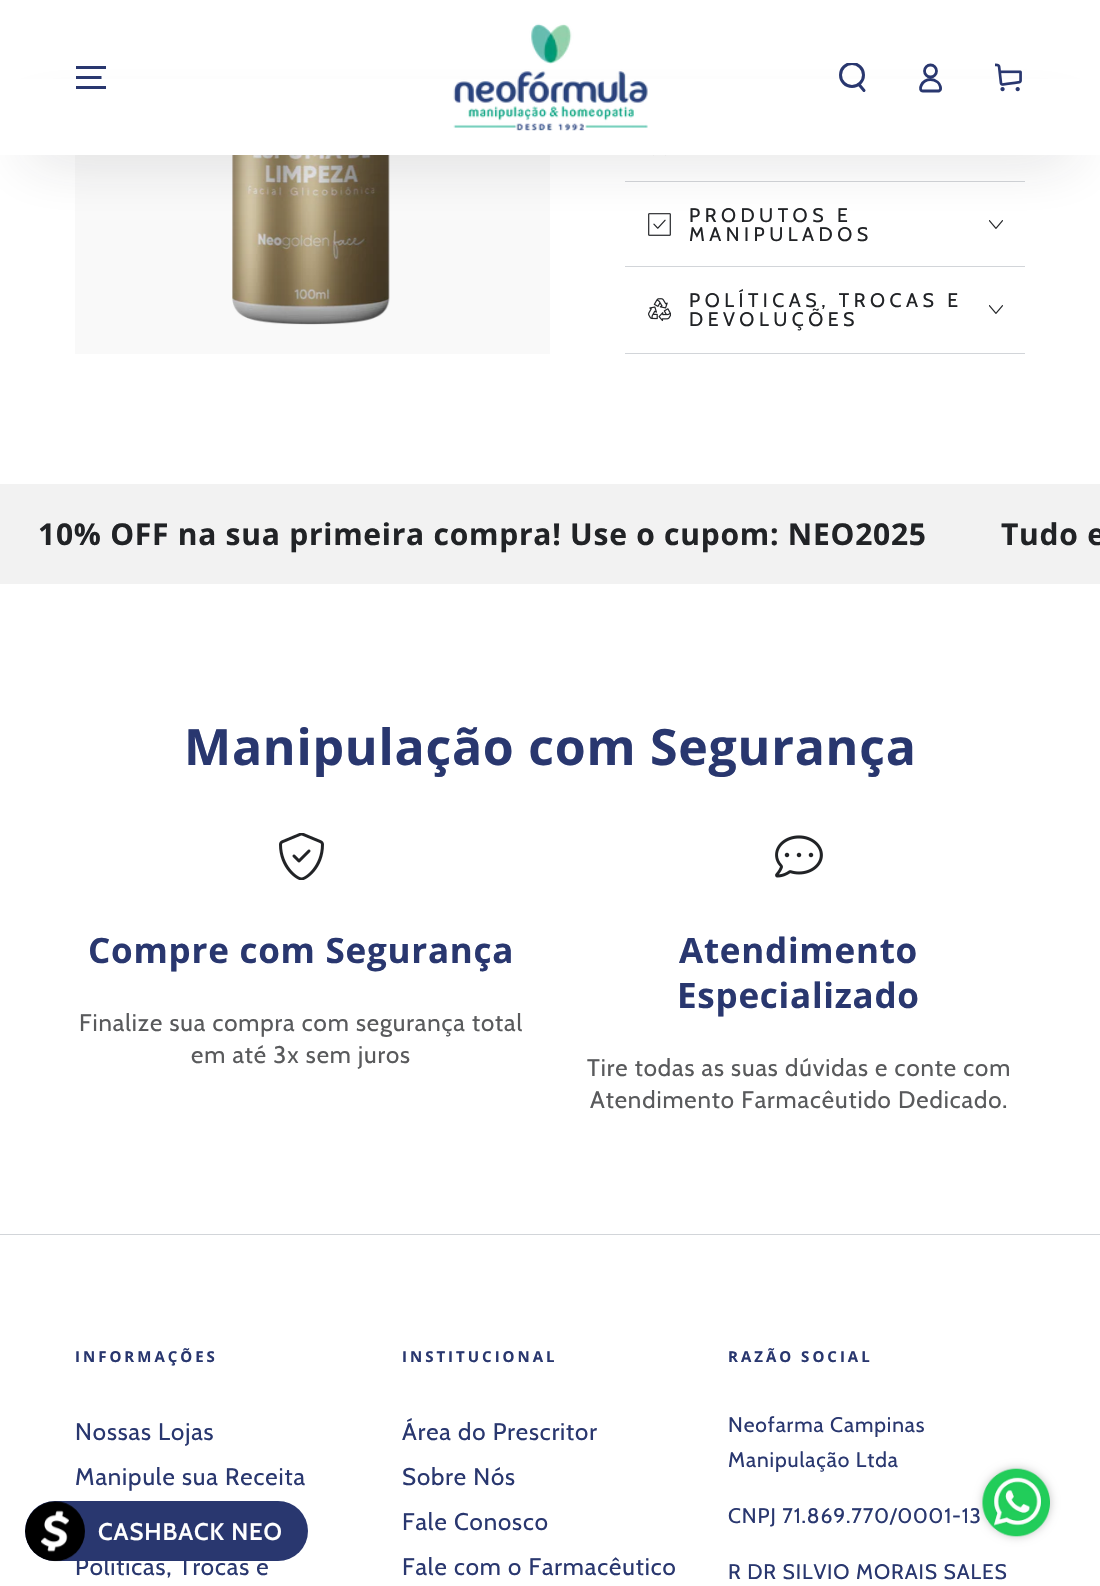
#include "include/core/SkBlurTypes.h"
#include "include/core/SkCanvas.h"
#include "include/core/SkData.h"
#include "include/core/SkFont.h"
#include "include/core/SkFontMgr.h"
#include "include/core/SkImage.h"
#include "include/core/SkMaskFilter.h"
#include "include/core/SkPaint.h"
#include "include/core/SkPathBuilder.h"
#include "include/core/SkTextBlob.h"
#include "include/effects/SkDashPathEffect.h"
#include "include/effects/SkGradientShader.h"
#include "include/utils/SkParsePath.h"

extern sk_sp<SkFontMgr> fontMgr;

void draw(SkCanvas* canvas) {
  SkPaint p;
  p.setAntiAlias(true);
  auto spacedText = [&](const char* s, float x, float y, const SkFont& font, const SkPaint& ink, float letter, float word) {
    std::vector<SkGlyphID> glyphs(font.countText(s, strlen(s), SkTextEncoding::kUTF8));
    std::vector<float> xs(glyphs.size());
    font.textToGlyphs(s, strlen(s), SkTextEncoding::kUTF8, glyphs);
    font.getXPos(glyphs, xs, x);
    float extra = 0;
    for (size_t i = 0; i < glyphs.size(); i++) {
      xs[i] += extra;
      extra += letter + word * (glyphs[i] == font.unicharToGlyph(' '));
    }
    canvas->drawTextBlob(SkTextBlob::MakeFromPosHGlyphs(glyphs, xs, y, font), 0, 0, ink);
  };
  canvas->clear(SK_ColorWHITE);
  p.setColor(SkColorSetRGB(249, 249, 249));
  canvas->drawRect(SkRect::MakeLTRB(75, 155, 550, 354), p);
  canvas->drawImageRect(SkImages::DeferredFromEncodedData(SkData::MakeFromFileName("images/3.png")), SkRect::MakeLTRB(232, 155, 390, 325), SkSamplingOptions());
  p.setColor(SkColorSetRGB(210, 213, 217));
  canvas->drawRect(SkRect::MakeLTRB(625, 181, 1025, 182), p);
  canvas->drawImageRect(SkImages::DeferredFromEncodedData(SkData::MakeFromFileName("images/4.png")), SkRect::MakeLTRB(653, 155, 666, 156), SkSamplingOptions());
  canvas->drawImageRect(SkImages::DeferredFromEncodedData(SkData::MakeFromFileName("images/5.png")), SkRect::MakeLTRB(648, 213, 671, 236), SkSamplingOptions());
  canvas->drawImageRect(SkImages::DeferredFromEncodedData(SkData::MakeFromFileName("images/6.png")), SkRect::MakeLTRB(989, 220, 1003, 229), SkSamplingOptions());
  p.setColor(SkColorSetARGB(51, 33, 35, 38));
  p.setMaskFilter(SkMaskFilter::MakeBlur(kNormal_SkBlurStyle, 30));
  canvas->drawRoundRect(SkRect::MakeLTRB(23, 125, 1078, 155), 15, 15, p);
  p.setMaskFilter(nullptr);
  p.setColor(SK_ColorWHITE);
  canvas->drawRect(SkRect::MakeLTRB(0, 79, 1100, 155), p);
  canvas->drawImageRect(SkImages::DeferredFromEncodedData(SkData::MakeFromFileName("images/1.png")), SkRect::MakeLTRB(453, 23, 648, 131), SkSamplingOptions());
  p.setStyle(SkPaint::kStroke_Style);
  p.setStrokeWidth(2.8f);
  p.setColor(SkColorSetRGB(41, 55, 111));
  canvas->drawPath(SkPathBuilder().moveTo(76, 87.5f).lineTo(106, 87.5f).moveTo(76, 77.5f).lineTo(101.5f, 77.5f).moveTo(76, 67.5f).lineTo(106, 67.5f).detach(), p);
  canvas->save();
  canvas->clipRect(SkRect::MakeLTRB(838, 63, 868, 93));
  p.setStrokeWidth(3);
  canvas->drawCircle(852, 75, 11.5f, p);
  canvas->restore();
  p.setStrokeCap(SkPaint::kRound_Cap);
  canvas->drawPath(SkPathBuilder().moveTo(859, 84.5f).lineTo(864, 90.5f).detach(), p);
  p.setStrokeWidth(2.8f);
  p.setStrokeCap(SkPaint::kButt_Cap);
  canvas->drawPath(SkPathBuilder().moveTo(930.5f, 79.5f).cubicTo(921.5f, 79.5f, 917.5f, 91, 923, 91).lineTo(939, 91).cubicTo(942.5f, 89.5f, 939.5f, 83.5f, 937.5f, 82).cubicTo(935.5f, 80.5f, 933, 79.5f, 930.5f, 79.5f).close().detach(), p);
  canvas->drawCircle(930.5f, 71, 6, p);
  canvas->drawImageRect(SkImages::DeferredFromEncodedData(SkData::MakeFromFileName("images/2.png")), SkRect::MakeLTRB(995, 63, 1022, 92), SkSamplingOptions());
  p.setStyle(SkPaint::kFill_Style);
  p.setColor(SkColorSetRGB(210, 213, 217));
  canvas->drawRect(SkRect::MakeLTRB(625, 266, 1025, 267), p);
  canvas->drawRect(SkRect::MakeLTRB(625, 353, 1025, 354), p);
  canvas->drawImageRect(SkImages::DeferredFromEncodedData(SkData::MakeFromFileName("images/7.png")), SkRect::MakeLTRB(648, 298, 671, 322), SkSamplingOptions());
  canvas->drawImageRect(SkImages::DeferredFromEncodedData(SkData::MakeFromFileName("images/6.png")), SkRect::MakeLTRB(989, 305, 1003, 314), SkSamplingOptions());
  p.setColor(SkColorSetRGB(242, 242, 242));
  canvas->drawRect(SkRect::MakeLTRB(0, 484, 1100, 584), p);
  canvas->drawImageRect(SkImages::DeferredFromEncodedData(SkData::MakeFromFileName("images/8.png")), SkRect::MakeLTRB(279, 833, 324, 880), SkSamplingOptions());
  canvas->drawImageRect(SkImages::DeferredFromEncodedData(SkData::MakeFromFileName("images/9.png")), SkRect::MakeLTRB(775, 835, 823, 878), SkSamplingOptions());
  p.setColor(SkColorSetRGB(210, 213, 217));
  canvas->drawRect(SkRect::MakeLTRB(0, 1234, 1100, 1235), p);
  p.setColor(SkColorSetRGB(41, 55, 111));
  canvas->drawRoundRect(SkRect::MakeLTRB(25, 1501, 308, 1561), 30, 30, p);
  p.setColor(SkColorSetRGB(194, 194, 194));
  p.setMaskFilter(SkMaskFilter::MakeBlur(kNormal_SkBlurStyle, 5));
  canvas->drawRoundRect(SkRect::MakeLTRB(983, 1469, 1050, 1536), 33.5f, 33.5f, p);
  p.setMaskFilter(nullptr);
  canvas->drawImageRect(SkImages::DeferredFromEncodedData(SkData::MakeFromFileName("images/11.png")), SkRect::MakeLTRB(982, 1468, 1050, 1537), SkSamplingOptions());
  SkFont font1(fontMgr->matchFamilyStyle("Cabin", SkFontStyle::Normal()), 19.5f);
  font1.setSubpixel(true);
  p.setColor(SkColorSetRGB(33, 35, 38));
  spacedText("PRODUTOS E", 689, 222, font1, p, 4.5f, 0);
  spacedText("MANIPULADOS", 689, 241, font1, p, 4.5f, 0);
  spacedText("POLÍTICAS, TROCAS E", 689, 307, font1, p, 4.5f, 0);
  spacedText("DEVOLUÇÕES", 689, 326, font1, p, 4.5f, 0);
  SkFont font2(fontMgr->matchFamilyStyle("Open Sans", SkFontStyle::Bold()), 30);
  font2.setSubpixel(true);
  spacedText("10% OFF na sua primeira compra! Use o cupom: NEO2025", 38, 545, font2, p, 0.75f, 0);
  spacedText("Tudo e", 1001, 545, font2, p, 0.75f, 0);
  SkFont font3(fontMgr->matchFamilyStyle("Open Sans", SkFontStyle::Bold()), 50);
  font3.setSubpixel(true);
  p.setColor(SkColorSetRGB(41, 55, 111));
  spacedText("Manipulação com Segurança", 184, 765, font3, p, 0.75f, 0);
  SkFont font4(fontMgr->matchFamilyStyle("Open Sans", SkFontStyle::Bold()), 35);
  font4.setSubpixel(true);
  spacedText("Compre com Segurança", 88, 963, font4, p, 0.75f, 0);
  SkFont font5(fontMgr->matchFamilyStyle("Cabin", SkFontStyle::Normal()), 24);
  font5.setSubpixel(true);
  p.setColor(SkColorSetRGB(89, 90, 92));
  spacedText("Finalize sua compra com segurança total", 79, 1031, font5, p, 0.9f, 0);
  spacedText("em até 3x sem juros", 191, 1063, font5, p, 0.9f, 0);
  p.setColor(SkColorSetRGB(41, 55, 111));
  spacedText("Atendimento", 679, 963, font4, p, 0.75f, 0);
  spacedText("Especializado", 677, 1008, font4, p, 0.75f, 0);
  p.setColor(SkColorSetRGB(89, 90, 92));
  spacedText("Tire todas as suas dúvidas e conte com", 587, 1076, font5, p, 0.9f, 0);
  spacedText("Atendimento Farmacêutido Dedicado.", 590, 1108, font5, p, 0.9f, 0);
  SkFont font6(fontMgr->matchFamilyStyle("Open Sans", SkFontStyle::Bold()), 15);
  font6.setSubpixel(true);
  p.setColor(SkColorSetRGB(41, 55, 111));
  spacedText("INFORMAÇÕES", 75, 1362, font6, p, 3, 0);
  spacedText("Nossas Lojas", 75, 1440, font5, p, 0.9f, 0);
  spacedText("Manipule sua Receita", 75, 1485, font5, p, 0.9f, 0);
  spacedText("Políticas, Trocas e", 75, 1575, font5, p, 0.9f, 0);
  spacedText("INSTITUCIONAL", 402, 1362, font6, p, 3, 0);
  spacedText("Área do Prescritor", 402, 1440, font5, p, 0.9f, 0);
  spacedText("Sobre Nós", 402, 1485, font5, p, 0.9f, 0);
  spacedText("Fale Conosco", 402, 1530, font5, p, 0.9f, 0);
  spacedText("Fale com o Farmacêutico", 402, 1575, font5, p, 0.9f, 0);
  spacedText("RAZÃO SOCIAL", 728, 1362, font6, p, 3, 0);
  SkFont font7(fontMgr->matchFamilyStyle("Cabin", SkFontStyle::Normal()), 21);
  font7.setSubpixel(true);
  spacedText("Neofarma Campinas", 728, 1432, font7, p, 0.9f, 0);
  spacedText("Manipulação Ltda", 728, 1467, font7, p, 0.9f, 0);
  spacedText("CNPJ 71.869.770/0001-13", 728, 1523, font7, p, 0.9f, 0);
  spacedText("R DR SILVIO MORAIS SALES", 728, 1579, font7, p, 0.9f, 0);
  canvas->drawImageRect(SkImages::DeferredFromEncodedData(SkData::MakeFromFileName("images/10.png")), SkRect::MakeLTRB(25, 1501, 85, 1562), SkSamplingOptions());
  SkFont font8(fontMgr->matchFamilyStyle("Cabin", SkFontStyle(600, SkFontStyle::kNormal_Width, SkFontStyle::kUpright_Slant)), 24);
  font8.setSubpixel(true);
  p.setColor(SK_ColorWHITE);
  spacedText("CASHBACK NEO", 98, 1540, font8, p, 0.9f, 0);
}
